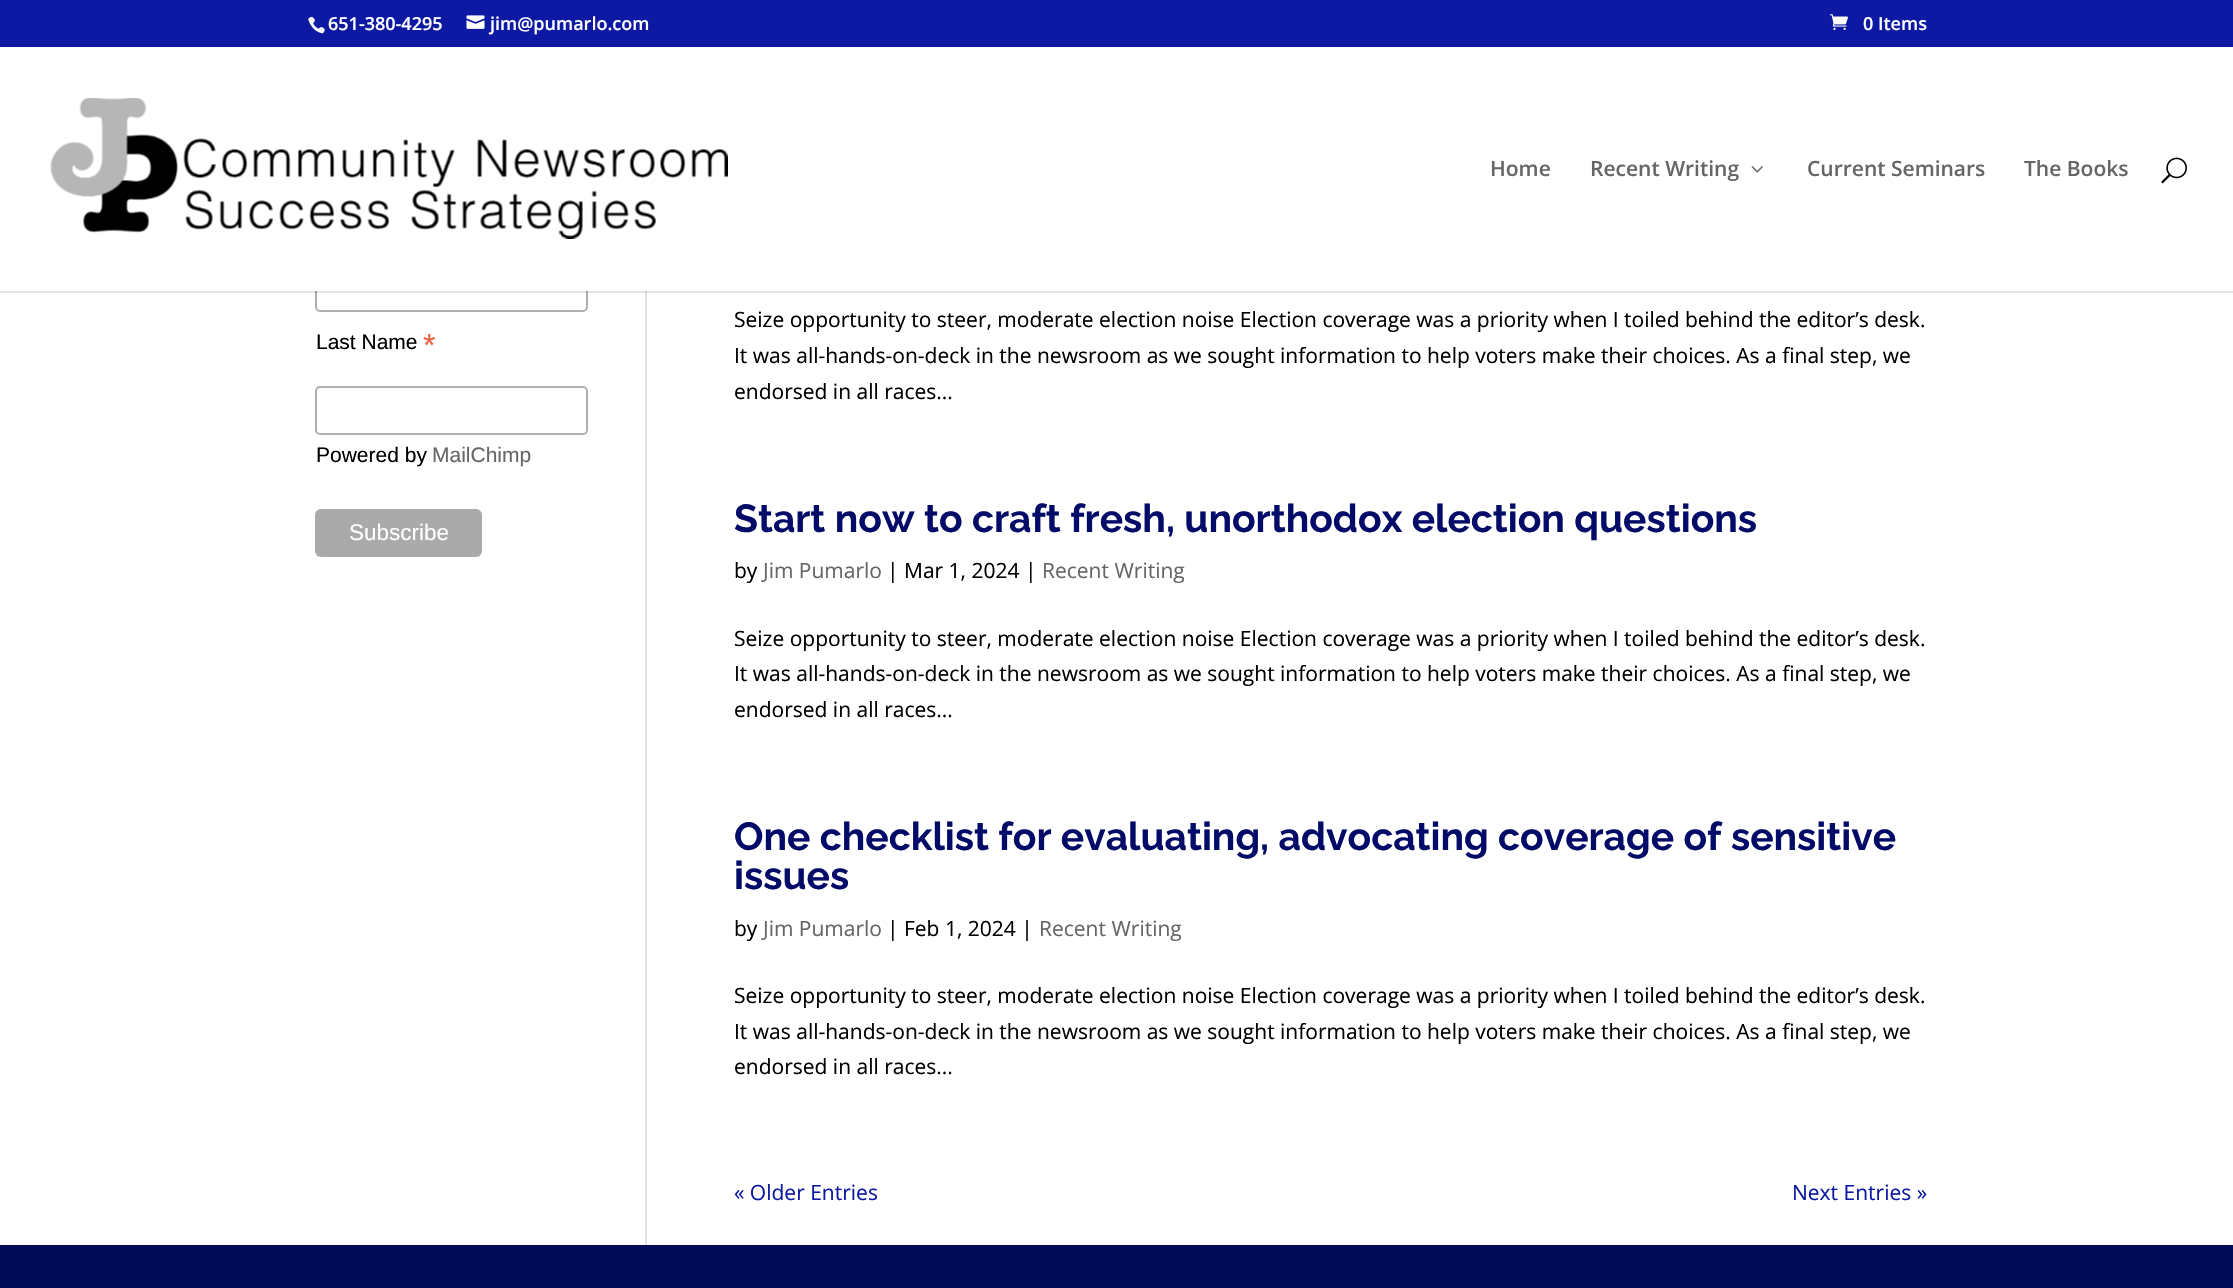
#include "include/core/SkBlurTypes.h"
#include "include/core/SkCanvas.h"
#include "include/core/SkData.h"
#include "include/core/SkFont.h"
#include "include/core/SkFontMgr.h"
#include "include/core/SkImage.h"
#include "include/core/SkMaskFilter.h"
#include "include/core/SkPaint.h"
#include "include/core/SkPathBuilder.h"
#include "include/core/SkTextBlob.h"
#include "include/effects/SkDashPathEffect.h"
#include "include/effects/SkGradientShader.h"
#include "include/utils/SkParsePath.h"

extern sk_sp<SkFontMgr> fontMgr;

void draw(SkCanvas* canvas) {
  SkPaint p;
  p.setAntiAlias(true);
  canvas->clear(SK_ColorWHITE);
  p.setColor(SkColorSetRGB(13, 25, 163));
  canvas->drawRect(SkRect::MakeLTRB(0, 0, 2233, 47), p);
  canvas->drawImageRect(SkImages::DeferredFromEncodedData(SkData::MakeFromFileName("images/1.png")), SkRect::MakeLTRB(308, 16, 325, 34), SkSamplingOptions());
  canvas->drawImageRect(SkImages::DeferredFromEncodedData(SkData::MakeFromFileName("images/2.png")), SkRect::MakeLTRB(466, 15, 485, 29), SkSamplingOptions());
  canvas->drawImageRect(SkImages::DeferredFromEncodedData(SkData::MakeFromFileName("images/3.png")), SkRect::MakeLTRB(1830, 14, 1848, 30), SkSamplingOptions());
  p.setColor(SkColorSetRGB(226, 226, 226));
  canvas->drawRect(SkRect::MakeLTRB(645, 291, 647, 1245), p);
  p.setStyle(SkPaint::kStroke_Style);
  p.setStrokeWidth(2);
  p.setColor(SkColorSetRGB(171, 176, 178));
  canvas->drawRoundRect(SkRect::MakeLTRB(316, 264, 587, 311), 4, 4, p);
  p.setStyle(SkPaint::kFill_Style);
  p.setColor(SkColorSetARGB(26, 0, 0, 0));
  canvas->drawPath(SkPathBuilder().moveTo(0, 291).lineTo(0, 293).lineTo(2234, 293).lineTo(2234, 47).lineTo(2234, 291).close().detach(), p);
  p.setColor(SK_ColorWHITE);
  canvas->drawRect(SkRect::MakeLTRB(315, 263, 588, 291), p);
  canvas->drawImageRect(SkImages::DeferredFromEncodedData(SkData::MakeFromFileName("images/4.png")), SkRect::MakeLTRB(50, 98, 728, 239), SkSamplingOptions());
  canvas->drawImageRect(SkImages::DeferredFromEncodedData(SkData::MakeFromFileName("images/5.png")), SkRect::MakeLTRB(1751, 166, 1763, 173), SkSamplingOptions());
  canvas->drawImageRect(SkImages::DeferredFromEncodedData(SkData::MakeFromFileName("images/6.png")), SkRect::MakeLTRB(2161, 157, 2187, 184), SkSamplingOptions());
  p.setStyle(SkPaint::kStroke_Style);
  p.setColor(SkColorSetRGB(171, 176, 178));
  canvas->drawRoundRect(SkRect::MakeLTRB(316, 387, 587, 434), 4, 4, p);
  p.setStyle(SkPaint::kFill_Style);
  p.setColor(SkColorSetRGB(170, 170, 170));
  canvas->drawRoundRect(SkRect::MakeLTRB(315, 509, 482, 557), 6, 6, p);
  p.setColor(SkColorSetRGB(0, 10, 86));
  canvas->drawRect(SkRect::MakeLTRB(0, 1245, 2233, 1288), p);
  SkFont font1(fontMgr->matchFamilyStyle("Open Sans", SkFontStyle(600, SkFontStyle::kNormal_Width, SkFontStyle::kUpright_Slant)), 18);
  font1.setSubpixel(true);
  p.setColor(SK_ColorWHITE);
  canvas->drawString("651-380-4295", 328, 30, font1, p);
  canvas->drawString("jim@pumarlo.com", 490, 30, font1, p);
  canvas->drawString("0 Items", 1863, 30, font1, p);
  SkFont font2(fontMgr->matchFamilyStyle("Open Sans", SkFontStyle(600, SkFontStyle::kNormal_Width, SkFontStyle::kUpright_Slant)), 21);
  font2.setSubpixel(true);
  p.setColor(SkColorSetRGB(102, 102, 102));
  canvas->drawString("Home", 1490, 176, font2, p);
  canvas->drawString("Recent Writing", 1590, 176, font2, p);
  canvas->drawString("Current Seminars", 1807, 176, font2, p);
  canvas->drawString("The Books", 2024, 176, font2, p);
  SkFont font3(fontMgr->matchFamilyStyle("Liberation Sans", SkFontStyle::Normal()), 21);
  font3.setSubpixel(true);
  p.setColor(SK_ColorBLACK);
  canvas->drawString("Last Name", 316, 349, font3, p);
  SkFont font4(fontMgr->matchFamilyStyle("Liberation Sans", SkFontStyle::Normal()), 32);
  font4.setSubpixel(true);
  p.setColor(SkColorSetRGB(232, 92, 65));
  canvas->drawString("*", 423, 356, font4, p);
  p.setColor(SK_ColorBLACK);
  canvas->drawString("Powered by", 316, 462, font3, p);
  p.setColor(SkColorSetRGB(102, 102, 102));
  canvas->drawString("MailChimp", 432, 462, font3, p);
  SkFont font5(fontMgr->matchFamilyStyle("Liberation Sans", SkFontStyle::Normal()), 22.5f);
  font5.setSubpixel(true);
  p.setColor(SK_ColorWHITE);
  canvas->drawString("Subscribe", 349, 540, font5, p);
  SkFont font6(fontMgr->matchFamilyStyle("Open Sans", SkFontStyle::Normal()), 21);
  font6.setSubpixel(true);
  p.setColor(SK_ColorBLACK);
  canvas->drawString("Seize opportunity to steer, moderate election noise Election coverage was a priority when I toiled behind the editor’s desk.", 734, 327, font6, p);
  canvas->drawString("It was all-hands-on-deck in the newsroom as we sought information to help voters make their choices. As a final step, we", 734, 363, font6, p);
  canvas->drawString("endorsed in all races...", 734, 399, font6, p);
  SkFont font7(fontMgr->matchFamilyStyle("Raleway", SkFontStyle::Bold()), 39);
  font7.setSubpixel(true);
  p.setColor(SkColorSetRGB(3, 11, 104));
  canvas->drawString("Start now to craft fresh, unorthodox election questions", 734, 532, font7, p);
  p.setColor(SK_ColorBLACK);
  canvas->drawString("by", 734, 578, font6, p);
  p.setColor(SkColorSetRGB(102, 102, 102));
  canvas->drawString("Jim Pumarlo", 763, 578, font6, p);
  p.setColor(SK_ColorBLACK);
  canvas->drawString("| Mar 1, 2024 |", 887, 578, font6, p);
  p.setColor(SkColorSetRGB(102, 102, 102));
  canvas->drawString("Recent Writing", 1042, 578, font6, p);
  p.setColor(SK_ColorBLACK);
  canvas->drawString("Seize opportunity to steer, moderate election noise Election coverage was a priority when I toiled behind the editor’s desk.", 734, 646, font6, p);
  canvas->drawString("It was all-hands-on-deck in the newsroom as we sought information to help voters make their choices. As a final step, we", 734, 681, font6, p);
  canvas->drawString("endorsed in all races...", 734, 717, font6, p);
  p.setColor(SkColorSetRGB(3, 11, 104));
  canvas->drawString("One checklist for evaluating, advocating coverage of sensitive", 734, 850, font7, p);
  canvas->drawString("issues", 734, 889, font7, p);
  p.setColor(SK_ColorBLACK);
  canvas->drawString("by", 734, 936, font6, p);
  p.setColor(SkColorSetRGB(102, 102, 102));
  canvas->drawString("Jim Pumarlo", 763, 936, font6, p);
  p.setColor(SK_ColorBLACK);
  canvas->drawString("| Feb 1, 2024 |", 887, 936, font6, p);
  p.setColor(SkColorSetRGB(102, 102, 102));
  canvas->drawString("Recent Writing", 1039, 936, font6, p);
  p.setColor(SK_ColorBLACK);
  canvas->drawString("Seize opportunity to steer, moderate election noise Election coverage was a priority when I toiled behind the editor’s desk.", 734, 1003, font6, p);
  canvas->drawString("It was all-hands-on-deck in the newsroom as we sought information to help voters make their choices. As a final step, we", 734, 1039, font6, p);
  canvas->drawString("endorsed in all races...", 734, 1074, font6, p);
  p.setColor(SkColorSetRGB(13, 25, 163));
  canvas->drawString("« Older Entries", 734, 1200, font6, p);
  canvas->drawString("Next Entries »", 1792, 1200, font6, p);
}
